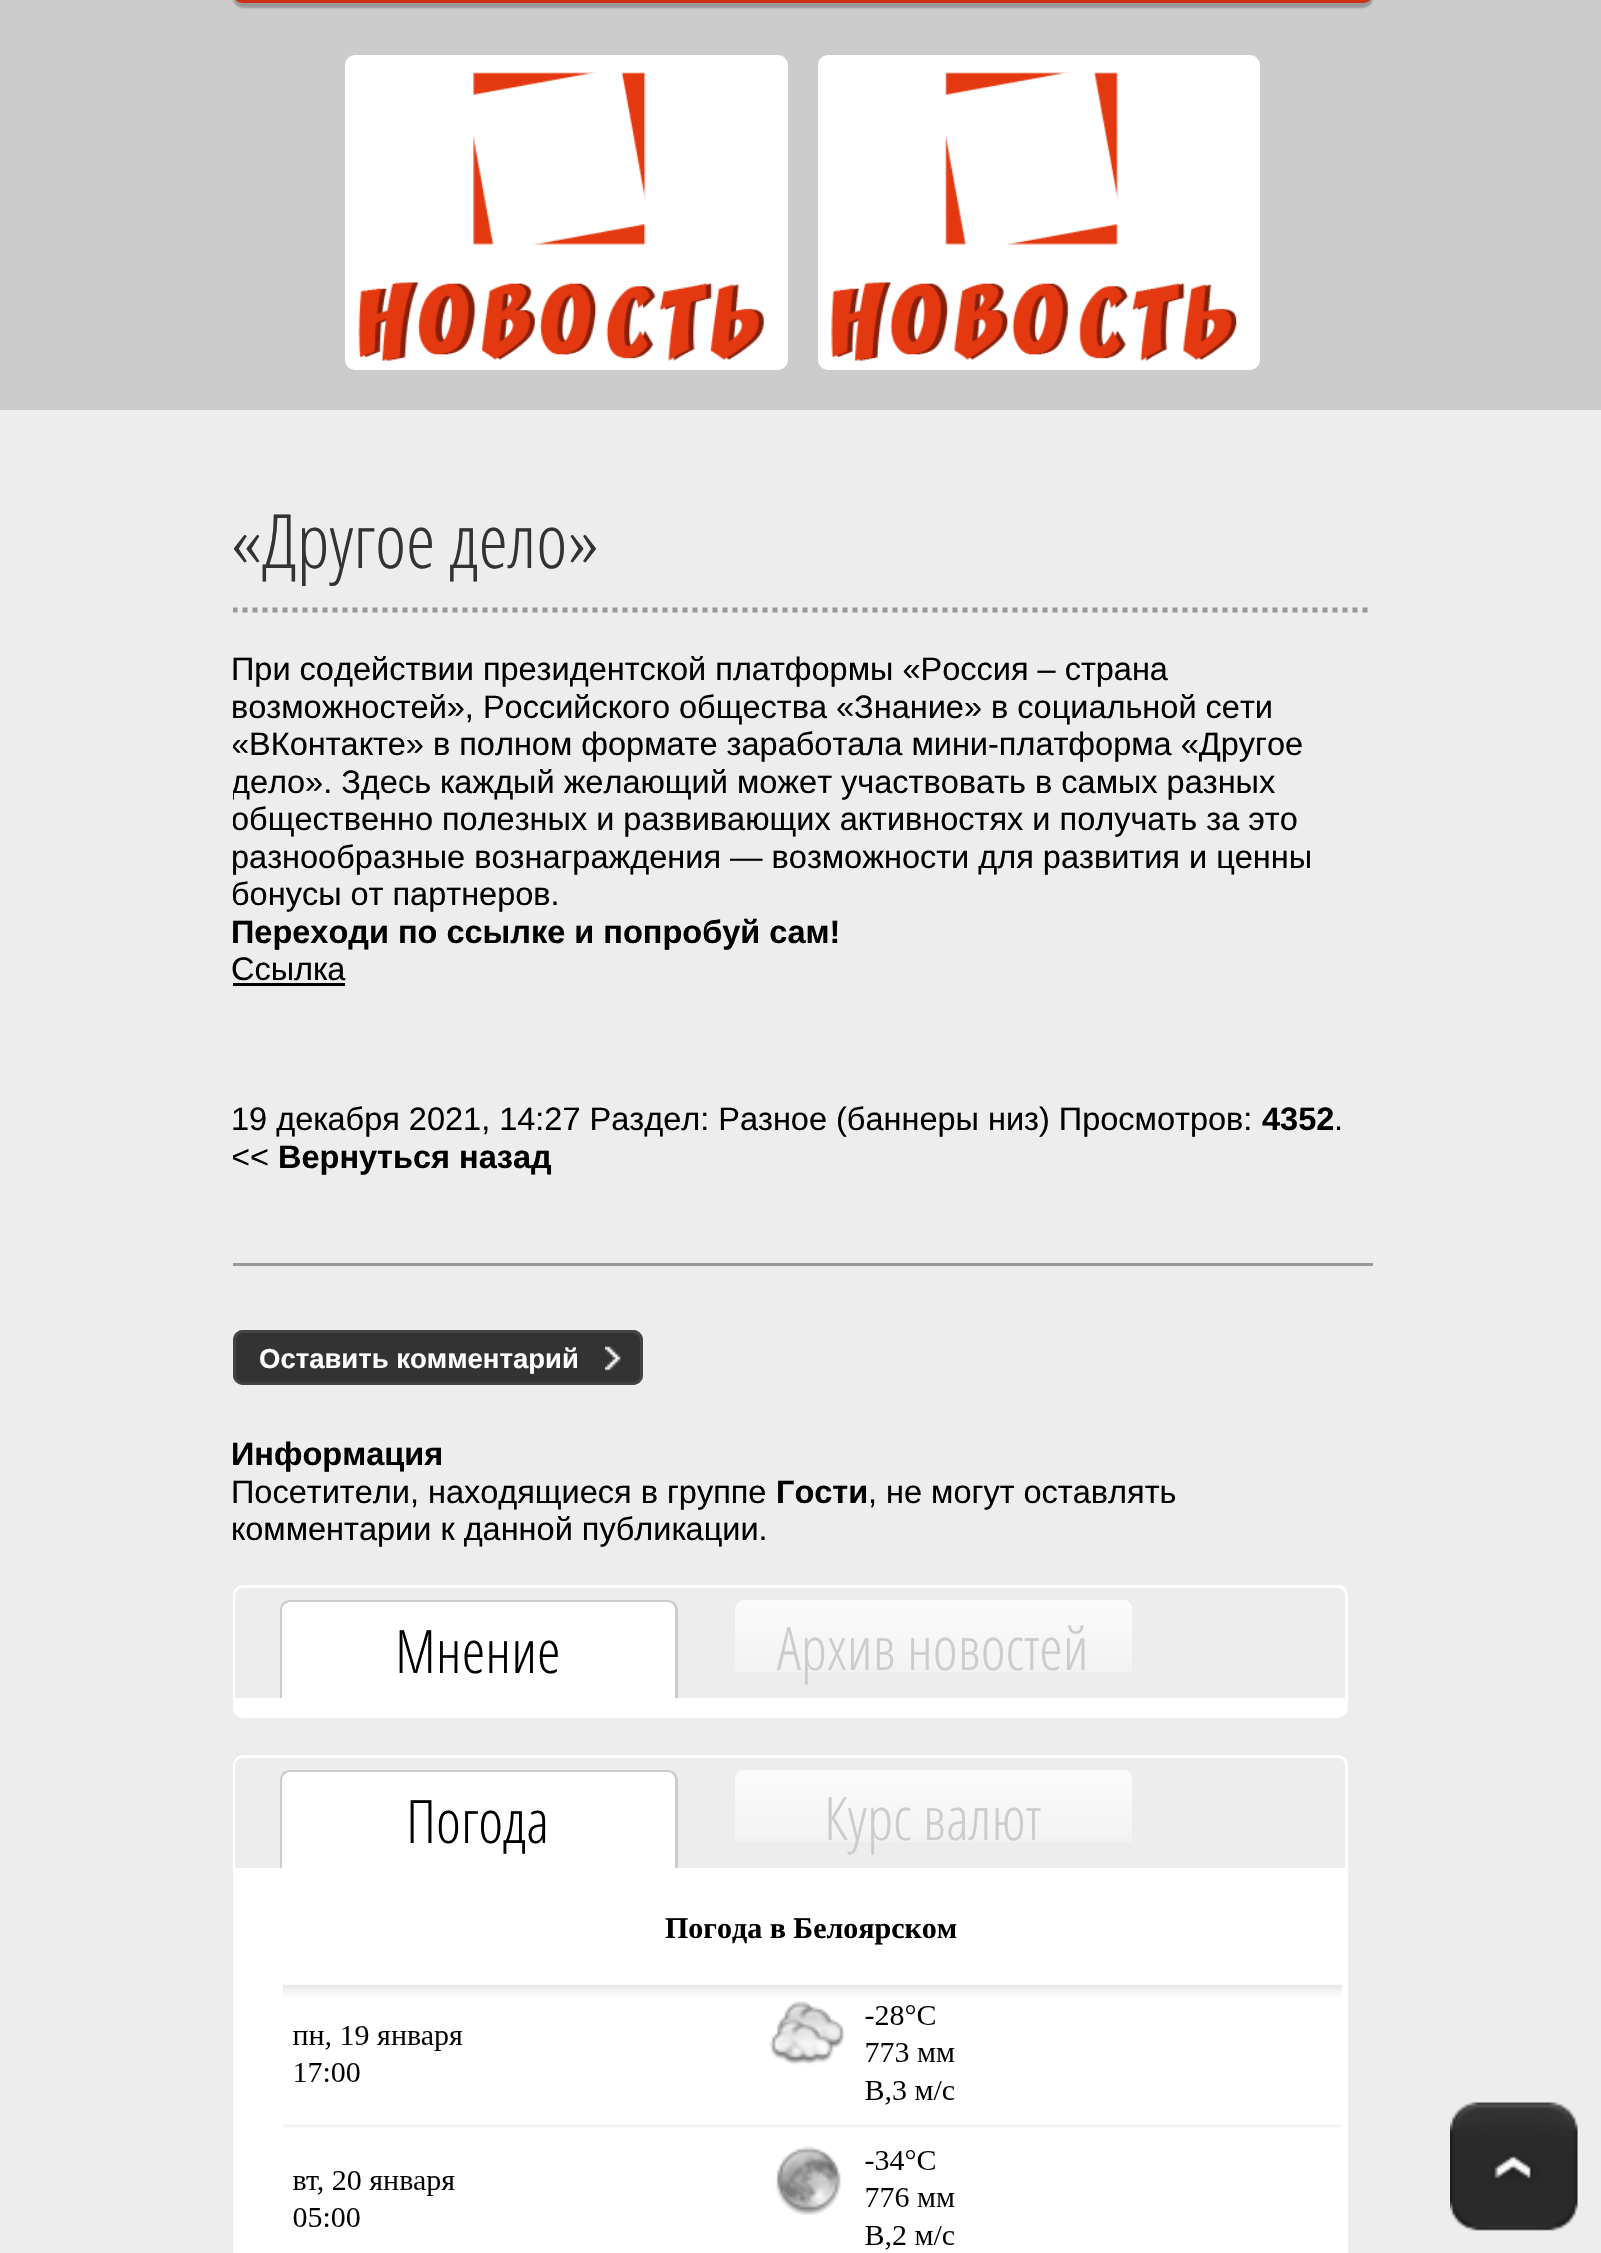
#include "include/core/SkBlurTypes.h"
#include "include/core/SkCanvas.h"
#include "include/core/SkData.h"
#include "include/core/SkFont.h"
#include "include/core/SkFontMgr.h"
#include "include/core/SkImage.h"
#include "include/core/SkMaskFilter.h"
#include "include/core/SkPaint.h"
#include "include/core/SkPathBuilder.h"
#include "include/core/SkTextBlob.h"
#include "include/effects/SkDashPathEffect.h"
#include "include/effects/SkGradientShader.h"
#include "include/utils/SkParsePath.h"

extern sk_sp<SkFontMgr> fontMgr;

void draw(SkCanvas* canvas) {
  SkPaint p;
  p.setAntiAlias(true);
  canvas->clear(SkColorSetRGB(204, 204, 204));
  p.setColor(SkColorSetRGB(153, 153, 153));
  p.setMaskFilter(SkMaskFilter::MakeBlur(kNormal_SkBlurStyle, 1));
  canvas->drawRoundRect(SkRect::MakeLTRB(233, -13, 1373, 8), 10, 10, p);
  p.setMaskFilter(nullptr);
  p.setColor(SkColorSetRGB(240, 46, 8));
  canvas->drawPath(SkPathBuilder().moveTo(233, -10).lineTo(1373, -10).lineTo(1373, -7).cubicTo(1373, -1.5f, 1368.5f, 3, 1363, 3).lineTo(243, 3).cubicTo(237.5f, 3, 233, -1.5f, 233, -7).close().detach(), p);
  p.setColor(SkColorSetARGB(51, 60, 60, 60));
  canvas->drawPath(SkPathBuilder(SkPathFillType::kEvenOdd).moveTo(233, -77).lineTo(233, -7).cubicTo(233, -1, 237, 3, 243, 3).lineTo(1363, 3).cubicTo(1369, 3, 1373, -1, 1373, -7).lineTo(1373, -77).close().moveTo(236, -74).lineTo(236, 0).lineTo(1370, 0).lineTo(1370, -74).close().detach(), p);
  p.setColor(SK_ColorWHITE);
  canvas->drawRoundRect(SkRect::MakeLTRB(351.5f, 61.5f, 781.5f, 363.5f), 3.5f, 3.5f, p);
  p.setStyle(SkPaint::kStroke_Style);
  p.setStrokeWidth(13);
  canvas->drawRoundRect(SkRect::MakeLTRB(351.5f, 61.5f, 781.5f, 363.5f), 3.5f, 3.5f, p);
  canvas->drawImageRect(SkImages::DeferredFromEncodedData(SkData::MakeFromFileName("images/1.png")), SkRect::MakeLTRB(358, 72, 764, 361), SkSamplingOptions());
  p.setStyle(SkPaint::kFill_Style);
  canvas->drawRoundRect(SkRect::MakeLTRB(824.5f, 61.5f, 1253.5f, 363.5f), 3.5f, 3.5f, p);
  p.setStyle(SkPaint::kStroke_Style);
  canvas->drawRoundRect(SkRect::MakeLTRB(824.5f, 61.5f, 1253.5f, 363.5f), 3.5f, 3.5f, p);
  canvas->drawImageRect(SkImages::DeferredFromEncodedData(SkData::MakeFromFileName("images/2.png")), SkRect::MakeLTRB(831, 72, 1237, 361), SkSamplingOptions());
  p.setStyle(SkPaint::kFill_Style);
  p.setColor(SkColorSetRGB(237, 237, 237));
  canvas->drawRect(SkRect::MakeLTRB(0, 410, 1601, 2253), p);
  canvas->save();
  canvas->clipRect(SkRect::MakeLTRB(233, 423, 1373, 1548));
  p.setStyle(SkPaint::kStroke_Style);
  p.setStrokeWidth(5);
  p.setColor(SkColorSetRGB(153, 153, 153));
  p.setPathEffect(SkDashPathEffect::Make({{5, 5}}, 0));
  canvas->drawPath(SkPathBuilder().moveTo(232.5f, 610).lineTo(1372.5f, 610).detach(), p);
  p.setPathEffect(nullptr);
  canvas->restore();
  p.setStyle(SkPaint::kFill_Style);
  p.setColor(SK_ColorBLACK);
  canvas->drawRect(SkRect::MakeLTRB(233, 983, 345, 986), p);
  p.setColor(SkColorSetRGB(153, 153, 153));
  canvas->drawRect(SkRect::MakeLTRB(233, 1263, 1373, 1266), p);
  p.setColor(SkColorSetRGB(51, 51, 51));
  canvas->drawRoundRect(SkRect::MakeLTRB(233, 1330, 643, 1385), 10, 10, p);
  canvas->drawImageRect(SkImages::DeferredFromEncodedData(SkData::MakeFromFileName("images/3.png")), SkRect::MakeLTRB(605, 1346, 621, 1371), SkSamplingOptions());
  p.setStyle(SkPaint::kStroke_Style);
  p.setStrokeWidth(3);
  p.setColor(SkColorSetRGB(68, 68, 68));
  canvas->drawRoundRect(SkRect::MakeLTRB(234.5f, 1331.5f, 641.5f, 1383.5f), 8.5f, 8.5f, p);
  p.setStyle(SkPaint::kFill_Style);
  p.setColor(SK_ColorWHITE);
  canvas->drawRoundRect(SkRect::MakeLTRB(234.5f, 1586.5f, 1346.5f, 1716.5f), 8.5f, 8.5f, p);
  p.setStyle(SkPaint::kStroke_Style);
  canvas->drawRoundRect(SkRect::MakeLTRB(234.5f, 1586.5f, 1346.5f, 1716.5f), 8.5f, 8.5f, p);
  p.setStyle(SkPaint::kFill_Style);
  p.setColor(SkColorSetRGB(237, 237, 237));
  canvas->drawPath(SkPathBuilder().moveTo(243, 1588).lineTo(1337, 1588).cubicTo(1341.5f, 1588, 1345, 1591.5f, 1345, 1596).lineTo(1345, 1698).lineTo(235, 1698).lineTo(235, 1596).cubicTo(235, 1591.5f, 238.5f, 1588, 243, 1588).close().detach(), p);
  p.setColor(SK_ColorWHITE);
  canvas->drawPath(SkPathBuilder().moveTo(290, 1600).lineTo(668, 1600).cubicTo(673.5f, 1600, 678, 1604.5f, 678, 1610).lineTo(678, 1698).lineTo(280, 1698).lineTo(280, 1610).cubicTo(280, 1604.5f, 284.5f, 1600, 290, 1600).close().detach(), p);
  p.setColor(SkColorSetRGB(204, 204, 204));
  canvas->drawPath(SkPathBuilder(SkPathFillType::kEvenOdd).moveTo(290, 1600).lineTo(668, 1600).cubicTo(673, 1600, 678, 1604, 678, 1610).lineTo(678, 1698).lineTo(280, 1698).lineTo(280, 1610).cubicTo(280, 1604, 284, 1600, 290, 1600).close().moveTo(290, 1602).lineTo(668, 1602).cubicTo(672, 1602, 675, 1606, 675, 1610).lineTo(675, 1698).lineTo(282, 1698).lineTo(282, 1610).cubicTo(282, 1606, 286, 1602, 290, 1602).close().detach(), p);
  canvas->drawImageRect(SkImages::DeferredFromEncodedData(SkData::MakeFromFileName("images/4.png")), SkRect::MakeLTRB(735, 1600, 1132, 1672), SkSamplingOptions());
  p.setColor(SK_ColorWHITE);
  canvas->drawRoundRect(SkRect::MakeLTRB(234.5f, 1756.5f, 1346.5f, 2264.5f), 8.5f, 8.5f, p);
  p.setStyle(SkPaint::kStroke_Style);
  canvas->drawRoundRect(SkRect::MakeLTRB(234.5f, 1756.5f, 1346.5f, 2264.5f), 8.5f, 8.5f, p);
  p.setStyle(SkPaint::kFill_Style);
  p.setColor(SkColorSetRGB(237, 237, 237));
  canvas->drawPath(SkPathBuilder().moveTo(243, 1758).lineTo(1337, 1758).cubicTo(1341.5f, 1758, 1345, 1761.5f, 1345, 1766).lineTo(1345, 1868).lineTo(235, 1868).lineTo(235, 1766).cubicTo(235, 1761.5f, 238.5f, 1758, 243, 1758).close().detach(), p);
  p.setColor(SK_ColorWHITE);
  canvas->drawPath(SkPathBuilder().moveTo(290, 1770).lineTo(668, 1770).cubicTo(673.5f, 1770, 678, 1774.5f, 678, 1780).lineTo(678, 1868).lineTo(280, 1868).lineTo(280, 1780).cubicTo(280, 1774.5f, 284.5f, 1770, 290, 1770).close().detach(), p);
  p.setColor(SkColorSetRGB(204, 204, 204));
  canvas->drawPath(SkPathBuilder(SkPathFillType::kEvenOdd).moveTo(290, 1770).lineTo(668, 1770).cubicTo(673, 1770, 678, 1774, 678, 1780).lineTo(678, 1868).lineTo(280, 1868).lineTo(280, 1780).cubicTo(280, 1774, 284, 1770, 290, 1770).close().moveTo(290, 1772).lineTo(668, 1772).cubicTo(672, 1772, 675, 1776, 675, 1780).lineTo(675, 1868).lineTo(282, 1868).lineTo(282, 1780).cubicTo(282, 1776, 286, 1772, 290, 1772).close().detach(), p);
  canvas->drawImageRect(SkImages::DeferredFromEncodedData(SkData::MakeFromFileName("images/4.png")), SkRect::MakeLTRB(735, 1770, 1132, 1842), SkSamplingOptions());
  canvas->drawImageRect(SkImages::DeferredFromEncodedData(SkData::MakeFromFileName("images/5.png")), SkRect::MakeLTRB(282, 1984, 1343, 2250), SkSamplingOptions());
  canvas->drawImageRect(SkImages::DeferredFromEncodedData(SkData::MakeFromFileName("images/6.png")), SkRect::MakeLTRB(1450, 2102, 1578, 2231), SkSamplingOptions());
  SkFont font1(fontMgr->matchFamilyStyle("Open Sans Condensed", SkFontStyle(300, SkFontStyle::kNormal_Width, SkFontStyle::kUpright_Slant)), 75);
  font1.setSubpixel(true);
  p.setColor(SkColorSetRGB(51, 51, 51));
  canvas->drawString("«Другое дело»", 231, 568, font1, p);
  SkFont font2(fontMgr->matchFamilyStyle("Liberation Sans", SkFontStyle::Normal()), 32.5f);
  font2.setSubpixel(true);
  p.setColor(SK_ColorBLACK);
  canvas->drawString("При содействии президентской платформы «Россия – страна", 231, 680, font2, p);
  canvas->drawString("возможностей», Российского общества «Знание» в социальной сети", 231, 718, font2, p);
  canvas->save();
  canvas->clipRect(SkRect::MakeLTRB(233, 423, 1373, 1548));
  canvas->drawString("«ВКонтакте» в полном формате заработала мини-платформа «Другое", 231, 755, font2, p);
  canvas->drawString("дело». Здесь каждый желающий может участвовать в самых разных", 231, 793, font2, p);
  canvas->drawString("общественно полезных и развивающих активностях и получать за это", 231, 830, font2, p);
  canvas->restore();
  canvas->drawString("разнообразные вознаграждения — возможности для развития и ценны", 231, 868, font2, p);
  canvas->drawString("бонусы от партнеров.", 231, 905, font2, p);
  SkFont font3(fontMgr->matchFamilyStyle("Liberation Sans", SkFontStyle::Bold()), 32.5f);
  font3.setSubpixel(true);
  canvas->drawString("Переходи по ссылке и попробуй сам!", 231, 943, font3, p);
  canvas->drawString("Ссылка", 231, 980, font2, p);
  canvas->drawString("19 декабря 2021, 14:27 Раздел: Разное (баннеры низ) Просмотров:", 231, 1130, font2, p);
  canvas->drawString("4352", 1262, 1130, font3, p);
  canvas->drawString(".", 1334, 1130, font2, p);
  canvas->save();
  canvas->clipRect(SkRect::MakeLTRB(233, 423, 1373, 1548));
  canvas->drawString("<<", 231, 1168, font2, p);
  canvas->restore();
  canvas->drawString("Вернуться назад", 278, 1168, font3, p);
  SkFont font4(fontMgr->matchFamilyStyle("Liberation Sans", SkFontStyle::Bold()), 27.5f);
  font4.setSubpixel(true);
  p.setColor(SK_ColorWHITE);
  canvas->drawString("Оставить комментарий", 259, 1368, font4, p);
  p.setColor(SK_ColorBLACK);
  canvas->drawString("Информация", 231, 1465, font3, p);
  canvas->drawString("Посетители, находящиеся в группе", 231, 1503, font2, p);
  canvas->drawString("Гости", 776, 1503, font3, p);
  canvas->drawString(", не могут оставлять", 868, 1503, font2, p);
  canvas->drawString("комментарии к данной публикации.", 231, 1540, font2, p);
  SkFont font5(fontMgr->matchFamilyStyle("Open Sans Condensed", SkFontStyle(300, SkFontStyle::kNormal_Width, SkFontStyle::kUpright_Slant)), 60);
  font5.setSubpixel(true);
  canvas->drawString("Мнение", 395, 1673, font5, p);
  p.setColor(SkColorSetRGB(204, 204, 204));
  canvas->drawString("Архив новостей", 777, 1670, font5, p);
  p.setColor(SK_ColorBLACK);
  canvas->drawString("Погода", 406, 1843, font5, p);
  p.setColor(SkColorSetRGB(204, 204, 204));
  canvas->drawString("Курс валют", 824, 1840, font5, p);
  SkFont font6(fontMgr->matchFamilyStyle("Liberation Serif", SkFontStyle::Bold()), 30);
  font6.setSubpixel(true);
  p.setColor(SK_ColorBLACK);
  canvas->drawString("Погода в Белоярском", 665, 1938, font6, p);
}
